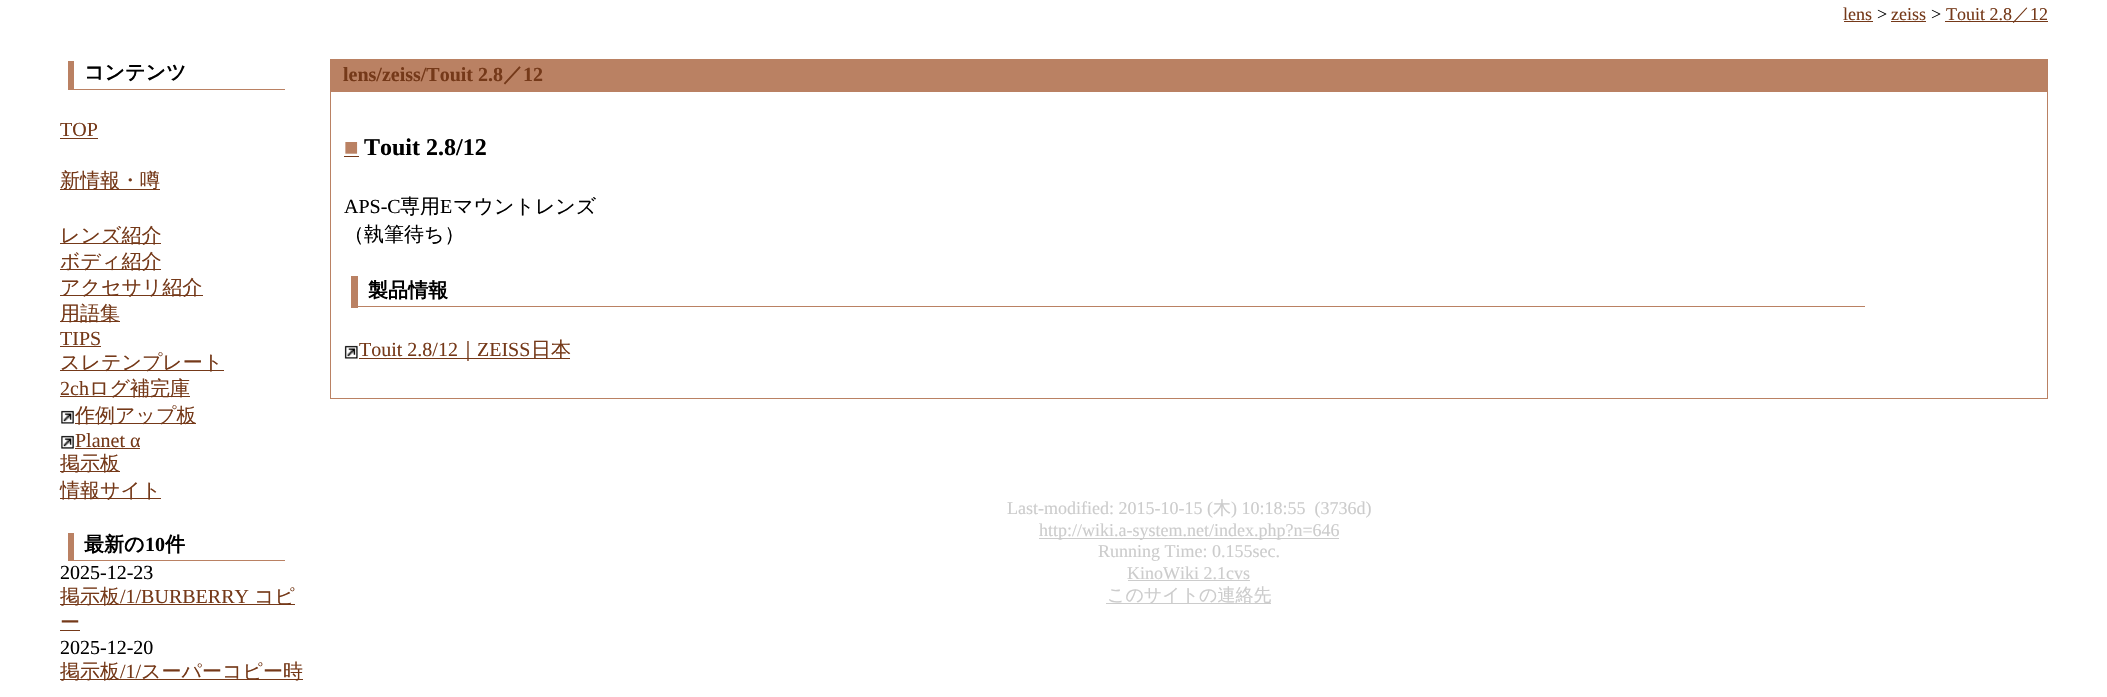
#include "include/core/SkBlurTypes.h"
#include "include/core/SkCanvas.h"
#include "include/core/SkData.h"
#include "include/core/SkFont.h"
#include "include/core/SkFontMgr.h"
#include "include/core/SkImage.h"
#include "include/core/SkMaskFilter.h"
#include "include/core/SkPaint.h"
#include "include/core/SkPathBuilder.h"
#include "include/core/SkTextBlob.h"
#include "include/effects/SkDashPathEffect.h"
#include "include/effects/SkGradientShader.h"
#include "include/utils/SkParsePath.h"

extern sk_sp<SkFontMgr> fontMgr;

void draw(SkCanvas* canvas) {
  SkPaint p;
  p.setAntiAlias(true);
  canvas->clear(SK_ColorWHITE);
  p.setColor(SkColorSetRGB(117, 57, 25));
  canvas->drawRect(SkRect::MakeLTRB(1844, 21, 1873, 22), p);
  canvas->drawRect(SkRect::MakeLTRB(1891, 21, 1926, 22), p);
  canvas->drawRect(SkRect::MakeLTRB(1945, 21, 2048, 22), p);
  p.setColor(SkColorSetRGB(186, 129, 99));
  canvas->drawRect(SkRect::MakeLTRB(68, 89, 285, 90), p);
  canvas->drawRect(SkRect::MakeLTRB(68, 61, 74, 90), p);
  p.setColor(SkColorSetRGB(117, 57, 25));
  canvas->drawRect(SkRect::MakeLTRB(60, 138, 98, 139), p);
  canvas->drawRect(SkRect::MakeLTRB(60, 189, 160, 190), p);
  canvas->drawRect(SkRect::MakeLTRB(60, 243, 161, 244), p);
  canvas->drawRect(SkRect::MakeLTRB(60, 269, 161, 270), p);
  canvas->drawRect(SkRect::MakeLTRB(60, 295, 203, 296), p);
  canvas->drawRect(SkRect::MakeLTRB(60, 321, 120, 322), p);
  canvas->drawRect(SkRect::MakeLTRB(60, 346, 101, 347), p);
  canvas->drawRect(SkRect::MakeLTRB(60, 370, 224, 371), p);
  canvas->drawRect(SkRect::MakeLTRB(60, 396, 190, 397), p);
  canvas->drawImageRect(SkImages::DeferredFromEncodedData(SkData::MakeFromFileName("images/1.png")), SkRect::MakeLTRB(61, 410, 74, 424), SkSamplingOptions());
  canvas->drawRect(SkRect::MakeLTRB(75, 423, 196, 424), p);
  canvas->drawImageRect(SkImages::DeferredFromEncodedData(SkData::MakeFromFileName("images/2.png")), SkRect::MakeLTRB(61, 435, 74, 449), SkSamplingOptions());
  canvas->drawRect(SkRect::MakeLTRB(75, 448, 140, 449), p);
  canvas->drawRect(SkRect::MakeLTRB(60, 471, 120, 472), p);
  canvas->drawRect(SkRect::MakeLTRB(60, 498, 161, 499), p);
  p.setColor(SkColorSetRGB(186, 129, 99));
  canvas->drawRect(SkRect::MakeLTRB(68, 560, 285, 561), p);
  canvas->drawRect(SkRect::MakeLTRB(68, 533, 74, 561), p);
  p.setColor(SkColorSetRGB(117, 57, 25));
  canvas->drawRect(SkRect::MakeLTRB(60, 604, 295, 605), p);
  canvas->drawRect(SkRect::MakeLTRB(60, 630, 80, 631), p);
  canvas->drawRect(SkRect::MakeLTRB(60, 679, 303, 680), p);
  p.setColor(SkColorSetRGB(186, 129, 99));
  canvas->drawRect(SkRect::MakeLTRB(330, 59, 2048, 91), p);
  p.setStyle(SkPaint::kStroke_Style);
  p.setStrokeWidth(1);
  canvas->drawRect(SkRect::MakeLTRB(330.5f, 91.5f, 2047.5f, 398.5f), p);
  p.setStyle(SkPaint::kFill_Style);
  p.setColor(SkColorSetRGB(117, 57, 25));
  canvas->drawRect(SkRect::MakeLTRB(344, 156, 359, 157), p);
  p.setColor(SkColorSetRGB(186, 129, 99));
  canvas->drawRect(SkRect::MakeLTRB(351, 306, 1865, 307), p);
  canvas->drawRect(SkRect::MakeLTRB(351, 276, 358, 308), p);
  canvas->drawImageRect(SkImages::DeferredFromEncodedData(SkData::MakeFromFileName("images/3.png")), SkRect::MakeLTRB(344, 345, 358, 359), SkSamplingOptions());
  p.setColor(SkColorSetRGB(117, 57, 25));
  canvas->drawRect(SkRect::MakeLTRB(359, 358, 570, 359), p);
  p.setColor(SkColorSetRGB(204, 204, 204));
  canvas->drawRect(SkRect::MakeLTRB(1039, 538, 1339, 539), p);
  canvas->drawRect(SkRect::MakeLTRB(1128, 580, 1250, 581), p);
  canvas->drawRect(SkRect::MakeLTRB(1106, 603, 1271, 604), p);
  SkFont font1(fontMgr->matchFamilyStyle("Liberation Serif", SkFontStyle::Normal()), 18);
  font1.setSubpixel(true);
  p.setColor(SkColorSetRGB(117, 57, 25));
  canvas->drawString("lens", 1843, 20, font1, p);
  p.setColor(SK_ColorBLACK);
  canvas->drawString(">", 1877, 20, font1, p);
  p.setColor(SkColorSetRGB(117, 57, 25));
  canvas->drawString("zeiss", 1891, 20, font1, p);
  p.setColor(SK_ColorBLACK);
  canvas->drawString(">", 1931, 20, font1, p);
  p.setColor(SkColorSetRGB(117, 57, 25));
  canvas->drawString("Touit 2.8", 1946, 20, font1, p);
  SkFont font2(fontMgr->matchFamilyStyle("WenQuanYi Zen Hei", SkFontStyle(500, SkFontStyle::kNormal_Width, SkFontStyle::kUpright_Slant)), 18);
  font2.setSubpixel(true);
  canvas->drawString("／", 2012, 20, font2, p);
  canvas->drawString("12", 2030, 20, font1, p);
  SkFont font3(fontMgr->matchFamilyStyle("WenQuanYi Zen Hei", SkFontStyle::Bold()), 20);
  font3.setSubpixel(true);
  p.setColor(SK_ColorBLACK);
  canvas->drawString("コンテンツ", 84, 79, font3, p);
  SkFont font4(fontMgr->matchFamilyStyle("Liberation Serif", SkFontStyle::Normal()), 20);
  font4.setSubpixel(true);
  p.setColor(SkColorSetRGB(117, 57, 25));
  canvas->drawString("TOP", 60, 136, font4, p);
  SkFont font5(fontMgr->matchFamilyStyle("WenQuanYi Zen Hei", SkFontStyle(500, SkFontStyle::kNormal_Width, SkFontStyle::kUpright_Slant)), 20);
  font5.setSubpixel(true);
  canvas->drawString("新情報・噂", 60, 187, font5, p);
  canvas->drawString("レンズ紹介", 60, 242, font5, p);
  canvas->drawString("ボディ紹介", 60, 268, font5, p);
  canvas->drawString("アクセサリ紹介", 60, 294, font5, p);
  canvas->drawString("用語集", 60, 320, font5, p);
  canvas->drawString("TIPS", 60, 345, font4, p);
  canvas->drawString("スレテンプレート", 60, 369, font5, p);
  canvas->drawString("2ch", 60, 395, font4, p);
  canvas->drawString("ログ補完庫", 89, 395, font5, p);
  canvas->drawString("作例アップ板", 75, 422, font5, p);
  canvas->drawString("Planet α", 75, 447, font4, p);
  canvas->drawString("掲示板", 60, 470, font5, p);
  canvas->drawString("情報サイト", 60, 497, font5, p);
  p.setColor(SK_ColorBLACK);
  canvas->drawString("最新の", 84, 551, font3, p);
  SkFont font6(fontMgr->matchFamilyStyle("Liberation Serif", SkFontStyle::Bold()), 20);
  font6.setSubpixel(true);
  canvas->drawString("10", 145, 551, font6, p);
  canvas->drawString("件", 165, 551, font3, p);
  canvas->drawString("2025-12-23", 60, 579, font4, p);
  p.setColor(SkColorSetRGB(117, 57, 25));
  canvas->drawString("掲示板", 60, 603, font5, p);
  canvas->drawString("/1/BURBERRY", 120, 603, font4, p);
  canvas->drawString("コピ", 254, 603, font5, p);
  canvas->drawString("ー", 60, 629, font5, p);
  p.setColor(SK_ColorBLACK);
  canvas->drawString("2025-12-20", 60, 654, font4, p);
  p.setColor(SkColorSetRGB(117, 57, 25));
  canvas->drawString("掲示板", 60, 678, font5, p);
  canvas->drawString("/1/", 120, 678, font4, p);
  canvas->drawString("スーパーコピー時", 141, 678, font5, p);
  canvas->drawString("lens/zeiss/Touit 2.8", 343, 81, font6, p);
  canvas->drawString("／", 503, 81, font3, p);
  canvas->drawString("12", 523, 81, font6, p);
  SkFont font7(fontMgr->matchFamilyStyle("Liberation Serif", SkFontStyle::Bold()), 24);
  font7.setSubpixel(true);
  p.setColor(SkColorSetRGB(186, 129, 99));
  canvas->drawString("■", 344, 155, font7, p);
  p.setColor(SK_ColorBLACK);
  canvas->drawString("Touit 2.8/12", 364, 155, font7, p);
  canvas->drawString("APS-C", 344, 213, font4, p);
  canvas->drawString("専用", 400, 213, font5, p);
  canvas->drawString("E", 440, 213, font4, p);
  canvas->drawString("マウントレンズ", 453, 213, font5, p);
  canvas->drawString("（執筆待ち）", 344, 241, font5, p);
  canvas->drawString("製品情報", 368, 297, font3, p);
  p.setColor(SkColorSetRGB(117, 57, 25));
  canvas->drawString("Touit 2.8/12", 359, 356, font4, p);
  canvas->drawString("｜", 458, 356, font5, p);
  canvas->drawString("ZEISS", 477, 356, font4, p);
  canvas->drawString("日本", 531, 356, font5, p);
  p.setColor(SkColorSetRGB(204, 204, 204));
  canvas->drawString("Last-modified: 2015-10-15 (", 1007, 514, font1, p);
  canvas->drawString("木", 1213, 514, font2, p);
  canvas->drawString(") 10:18:55  (3736d)", 1231, 514, font1, p);
  canvas->drawString("http://wiki.a-system.net/index.php?n=646", 1039, 536, font1, p);
  canvas->drawString("Running Time: 0.155sec.", 1098, 557, font1, p);
  canvas->drawString("KinoWiki 2.1cvs", 1127, 579, font1, p);
  canvas->drawString("このサイトの連絡先", 1107, 601, font2, p);
}
